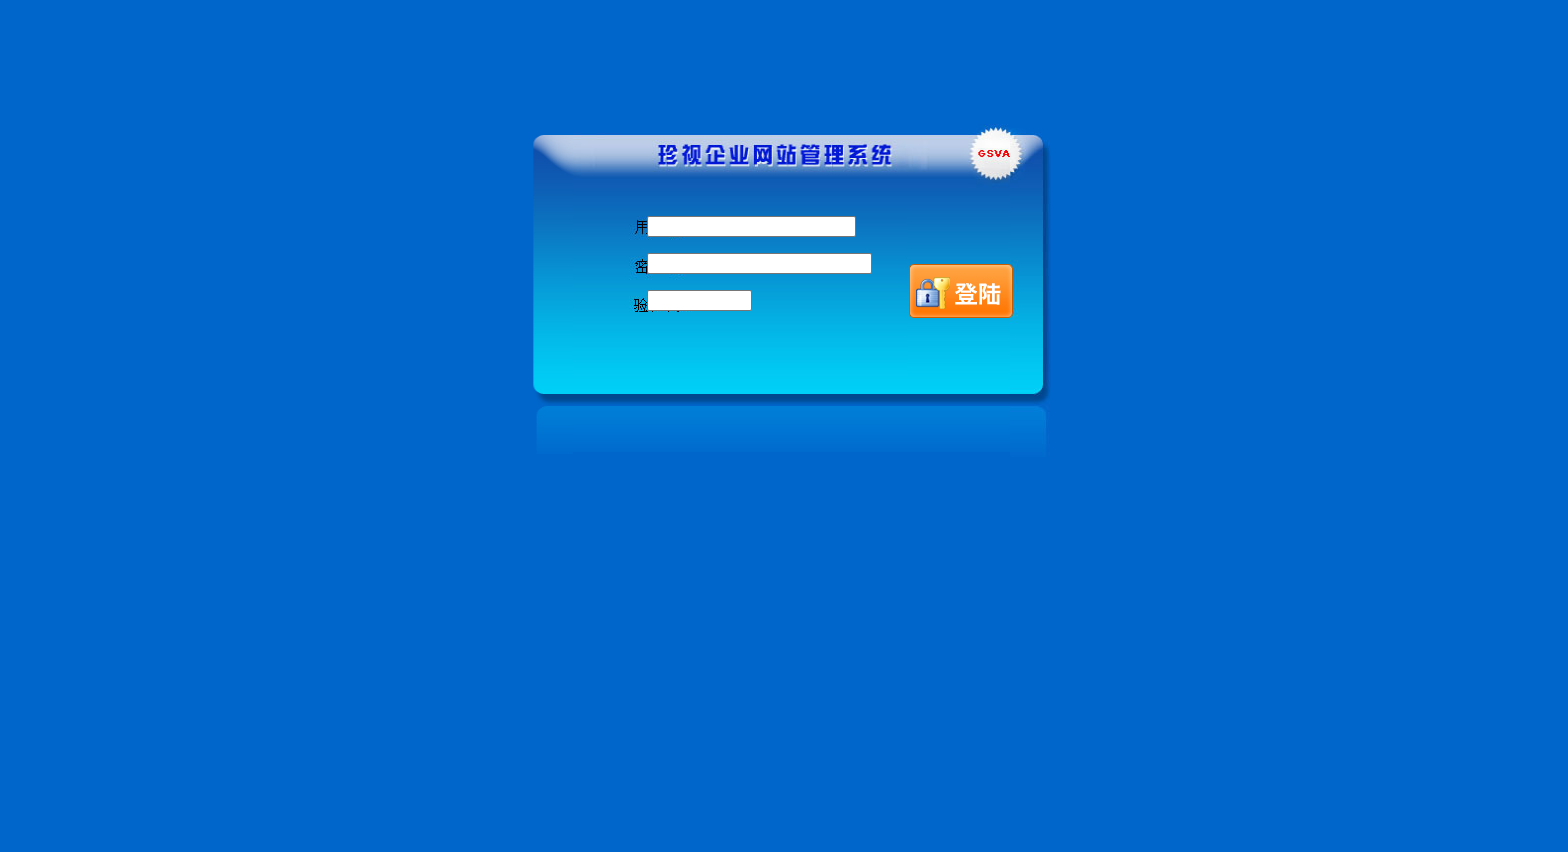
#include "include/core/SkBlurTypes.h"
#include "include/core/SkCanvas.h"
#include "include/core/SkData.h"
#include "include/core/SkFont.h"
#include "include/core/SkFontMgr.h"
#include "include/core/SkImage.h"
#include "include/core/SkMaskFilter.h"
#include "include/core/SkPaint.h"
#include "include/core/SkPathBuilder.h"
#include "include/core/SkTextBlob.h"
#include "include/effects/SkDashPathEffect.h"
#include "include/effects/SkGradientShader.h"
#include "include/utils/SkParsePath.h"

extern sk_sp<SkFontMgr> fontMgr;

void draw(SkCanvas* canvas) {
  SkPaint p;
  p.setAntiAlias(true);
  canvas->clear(SkColorSetRGB(0, 102, 203));
  canvas->drawImageRect(SkImages::DeferredFromEncodedData(SkData::MakeFromFileName("images/1.png")), SkRect::MakeLTRB(533, 135, 573, 454), SkSamplingOptions());
  canvas->drawImageRect(SkImages::DeferredFromEncodedData(SkData::MakeFromFileName("images/2.png")), SkRect::MakeLTRB(573, 124, 1010, 200), SkSamplingOptions());
  canvas->drawImageRect(SkImages::DeferredFromEncodedData(SkData::MakeFromFileName("images/3.png")), SkRect::MakeLTRB(1010, 128, 1051, 457), SkSamplingOptions());
  canvas->drawImageRect(SkImages::DeferredFromEncodedData(SkData::MakeFromFileName("images/4.png")), SkRect::MakeLTRB(573, 200, 907, 377), SkSamplingOptions());
  p.setColor(SK_ColorWHITE);
  canvas->drawRoundRect(SkRect::MakeLTRB(647.5f, 216.5f, 855.5f, 236.5f), 1.5f, 1.5f, p);
  p.setStyle(SkPaint::kStroke_Style);
  p.setStrokeWidth(1);
  p.setColor(SkColorSetRGB(118, 118, 118));
  canvas->drawRoundRect(SkRect::MakeLTRB(647.5f, 216.5f, 855.5f, 236.5f), 1.5f, 1.5f, p);
  p.setStyle(SkPaint::kFill_Style);
  p.setColor(SK_ColorWHITE);
  canvas->drawRoundRect(SkRect::MakeLTRB(647.5f, 253.5f, 871.5f, 273.5f), 1.5f, 1.5f, p);
  p.setStyle(SkPaint::kStroke_Style);
  p.setColor(SkColorSetRGB(118, 118, 118));
  canvas->drawRoundRect(SkRect::MakeLTRB(647.5f, 253.5f, 871.5f, 273.5f), 1.5f, 1.5f, p);
  p.setStyle(SkPaint::kFill_Style);
  p.setColor(SK_ColorWHITE);
  canvas->drawRoundRect(SkRect::MakeLTRB(647.5f, 290.5f, 751.5f, 310.5f), 1.5f, 1.5f, p);
  p.setStyle(SkPaint::kStroke_Style);
  p.setColor(SkColorSetRGB(118, 118, 118));
  canvas->drawRoundRect(SkRect::MakeLTRB(647.5f, 290.5f, 751.5f, 310.5f), 1.5f, 1.5f, p);
  canvas->drawImageRect(SkImages::DeferredFromEncodedData(SkData::MakeFromFileName("images/5.png")), SkRect::MakeLTRB(907, 200, 1010, 261), SkSamplingOptions());
  canvas->drawImageRect(SkImages::DeferredFromEncodedData(SkData::MakeFromFileName("images/6.png")), SkRect::MakeLTRB(907, 261, 1010, 320), SkSamplingOptions());
  canvas->drawImageRect(SkImages::DeferredFromEncodedData(SkData::MakeFromFileName("images/7.png")), SkRect::MakeLTRB(907, 320, 1010, 377), SkSamplingOptions());
  canvas->drawImageRect(SkImages::DeferredFromEncodedData(SkData::MakeFromFileName("images/8.png")), SkRect::MakeLTRB(573, 377, 1010, 452), SkSamplingOptions());
}
